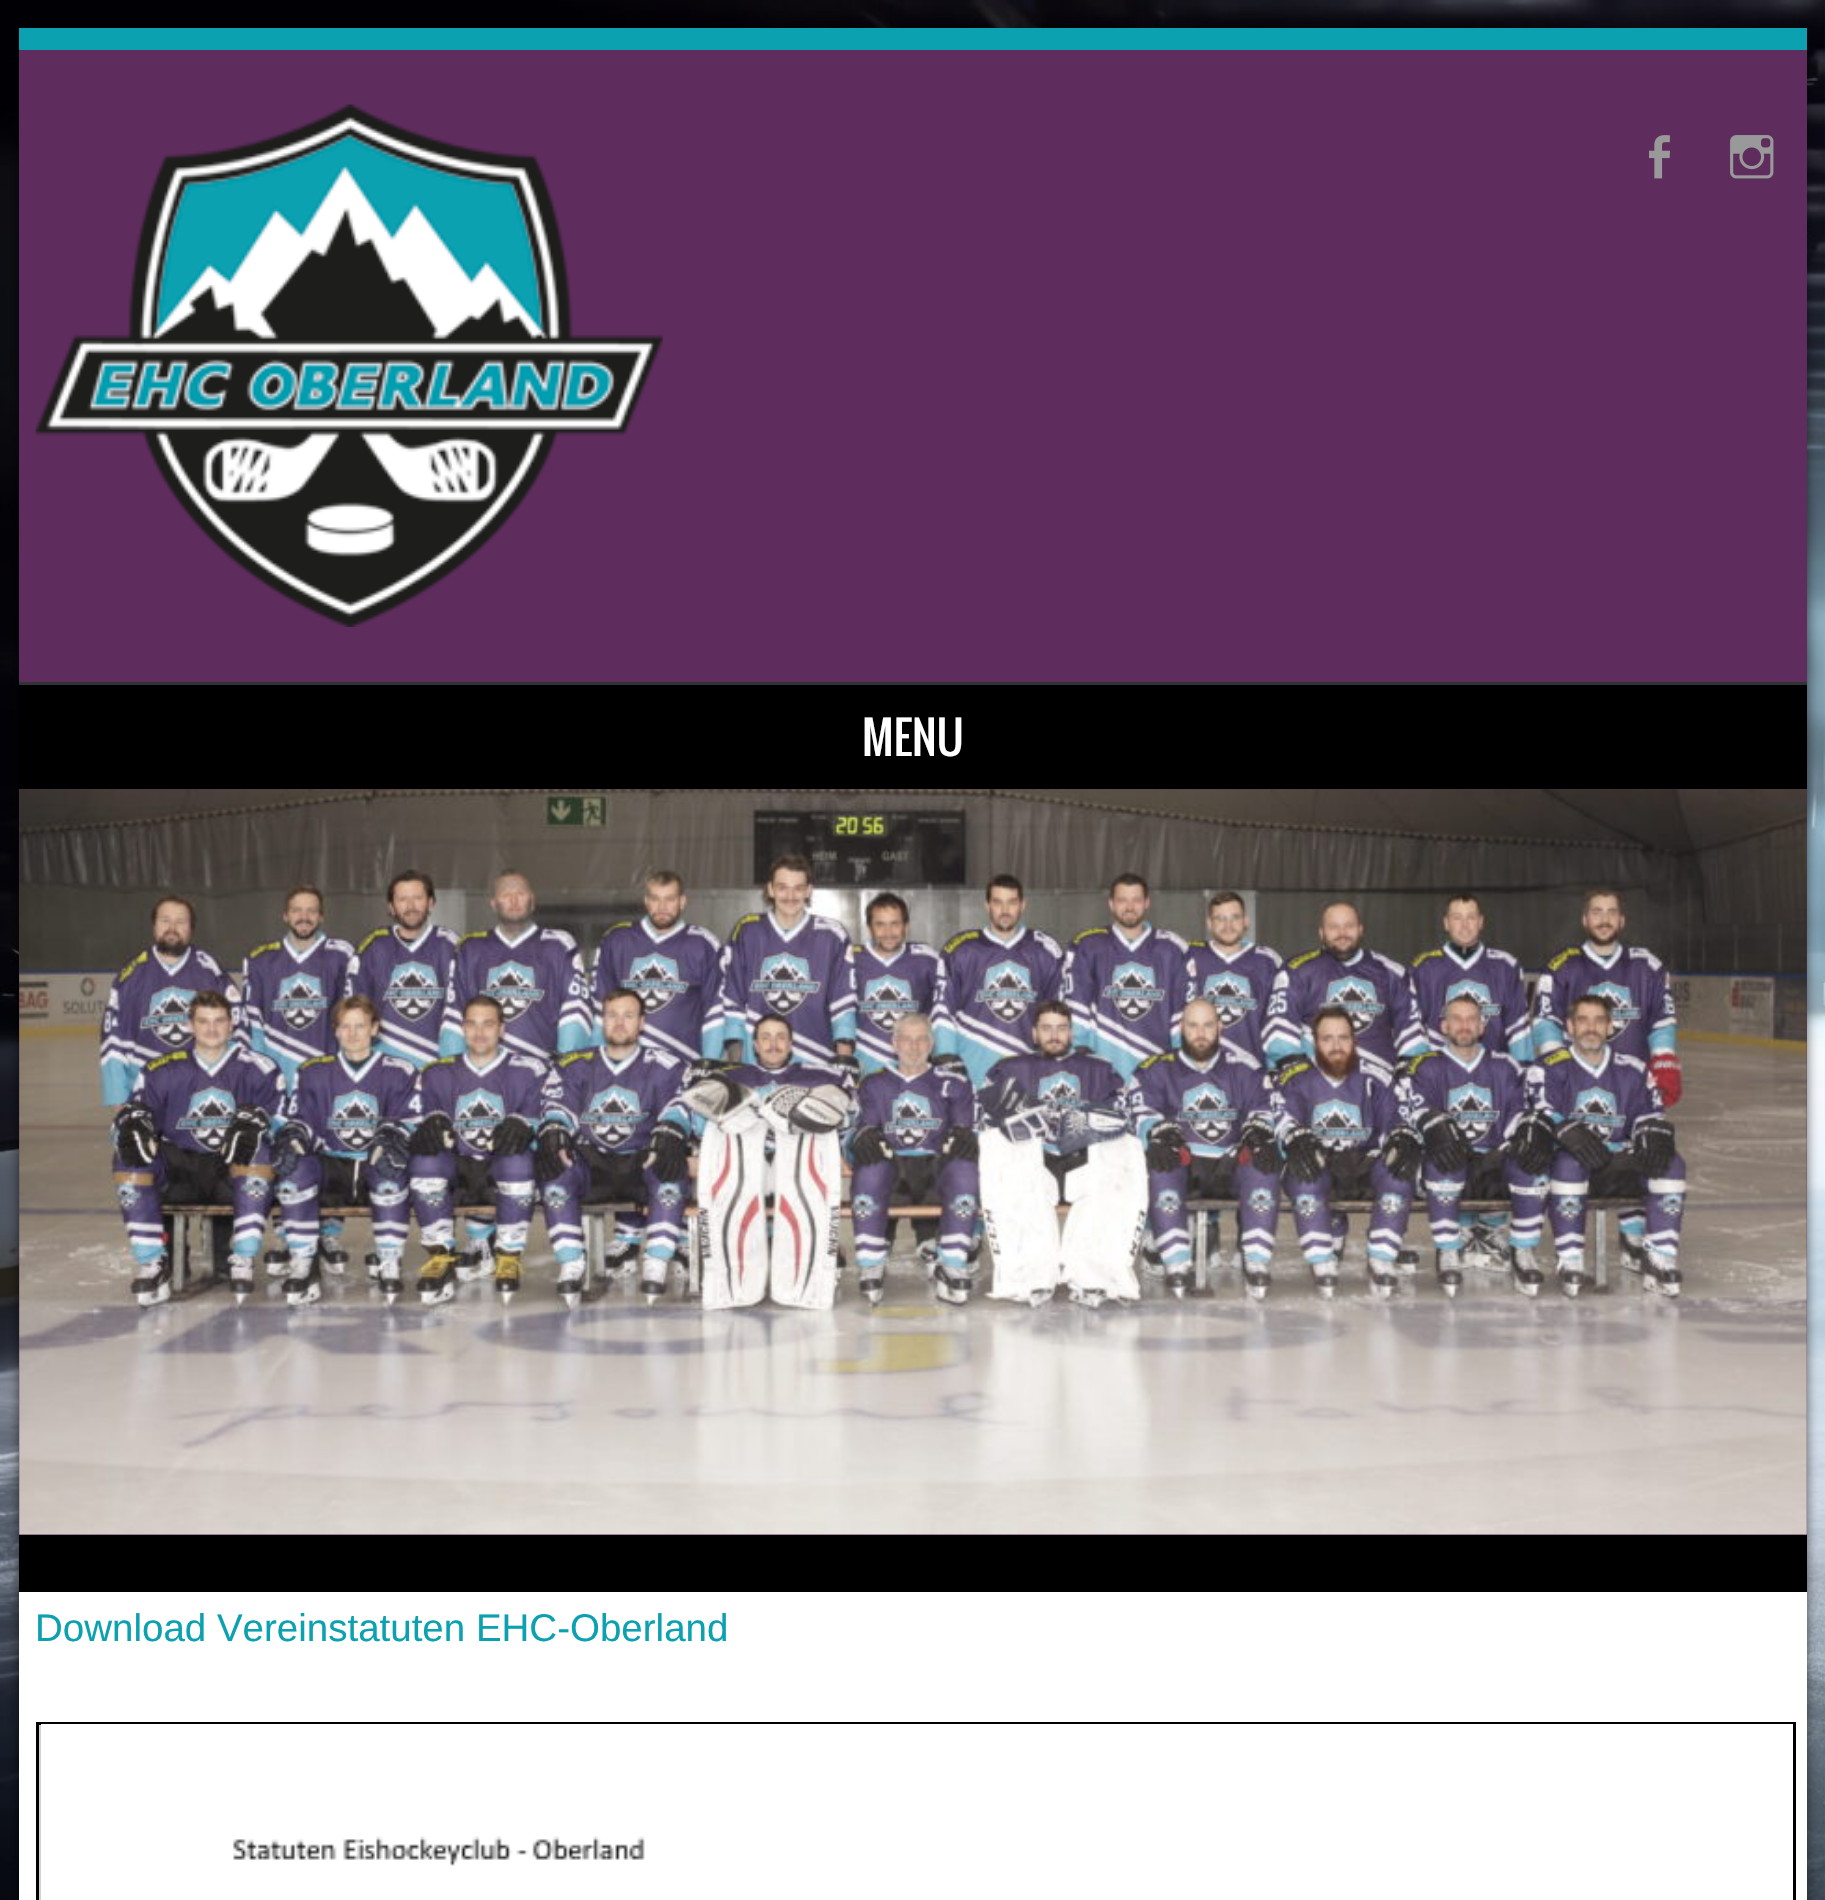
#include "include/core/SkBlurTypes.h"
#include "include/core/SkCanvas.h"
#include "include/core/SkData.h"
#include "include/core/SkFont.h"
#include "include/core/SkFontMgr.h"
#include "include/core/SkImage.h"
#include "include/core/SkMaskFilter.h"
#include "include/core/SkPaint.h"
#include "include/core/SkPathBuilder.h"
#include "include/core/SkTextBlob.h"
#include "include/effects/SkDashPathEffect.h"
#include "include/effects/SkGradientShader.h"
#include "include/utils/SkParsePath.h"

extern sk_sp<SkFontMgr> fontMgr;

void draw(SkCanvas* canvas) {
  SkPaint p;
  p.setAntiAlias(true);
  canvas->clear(SK_ColorWHITE);
  canvas->drawImageRect(SkImages::DeferredFromEncodedData(SkData::MakeFromFileName("images/1.png")), SkRect::MakeLTRB(0, 0, 1825, 1900), SkSamplingOptions());
  p.setColor(SkColorSetARGB(153, 0, 0, 0));
  p.setMaskFilter(SkMaskFilter::MakeBlur(kNormal_SkBlurStyle, 5.5f));
  canvas->drawRect(SkRect::MakeLTRB(19, 39, 1807, 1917), p);
  p.setMaskFilter(nullptr);
  p.setColor(SK_ColorBLACK);
  canvas->drawRect(SkRect::MakeLTRB(19, 1535, 1807, 1592), p);
  p.setColor(SkColorSetRGB(11, 161, 177));
  canvas->drawRect(SkRect::MakeLTRB(19, 28, 1807, 50), p);
  p.setColor(SkColorSetRGB(94, 44, 93));
  canvas->drawRect(SkRect::MakeLTRB(19, 50, 1807, 1535), p);
  canvas->drawImageRect(SkImages::DeferredFromEncodedData(SkData::MakeFromFileName("images/2.png")), SkRect::MakeLTRB(35, 104, 663, 627), SkSamplingOptions());
  canvas->drawImageRect(SkImages::DeferredFromEncodedData(SkData::MakeFromFileName("images/3.png")), SkRect::MakeLTRB(1649, 135, 1670, 179), SkSamplingOptions());
  canvas->drawImageRect(SkImages::DeferredFromEncodedData(SkData::MakeFromFileName("images/4.png")), SkRect::MakeLTRB(1730, 135, 1774, 179), SkSamplingOptions());
  p.setColor(SK_ColorBLACK);
  canvas->drawRect(SkRect::MakeLTRB(19, 685, 1807, 789), p);
  p.setColor(SkColorSetRGB(51, 51, 51));
  canvas->drawRect(SkRect::MakeLTRB(19, 682, 1807, 685), p);
  canvas->drawImageRect(SkImages::DeferredFromEncodedData(SkData::MakeFromFileName("images/5.png")), SkRect::MakeLTRB(19, 789, 1807, 1535), SkSamplingOptions());
  p.setColor(SK_ColorWHITE);
  canvas->drawRect(SkRect::MakeLTRB(19, 1592, 1807, 1900), p);
  p.setColor(SkColorSetRGB(211, 211, 211));
  canvas->drawRect(SkRect::MakeLTRB(39, 1725, 41, 1900), p);
  p.setStyle(SkPaint::kStroke_Style);
  p.setStrokeWidth(3);
  p.setColor(SK_ColorBLACK);
  canvas->drawRect(SkRect::MakeLTRB(37.5f, 1723.5f, 1794.5f, 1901.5f), p);
  p.setStyle(SkPaint::kFill_Style);
  p.setColor(SK_ColorWHITE);
  canvas->drawRect(SkRect::MakeLTRB(41, 1724, 1793, 1725), p);
  canvas->drawImageRect(SkImages::DeferredFromEncodedData(SkData::MakeFromFileName("images/6.png")), SkRect::MakeLTRB(233, 1836, 645, 1866), SkSamplingOptions());
  SkFont font1(fontMgr->matchFamilyStyle("Oswald", SkFontStyle::Normal()), 44);
  font1.setSubpixel(true);
  canvas->drawString("MENU", 862, 756, font1, p);
  SkFont font2(fontMgr->matchFamilyStyle("Liberation Sans", SkFontStyle::Normal()), 38.5f);
  font2.setSubpixel(true);
  p.setColor(SkColorSetRGB(11, 161, 177));
  canvas->drawString("Download Vereinstatuten EHC-Oberland", 35, 1641, font2, p);
}
